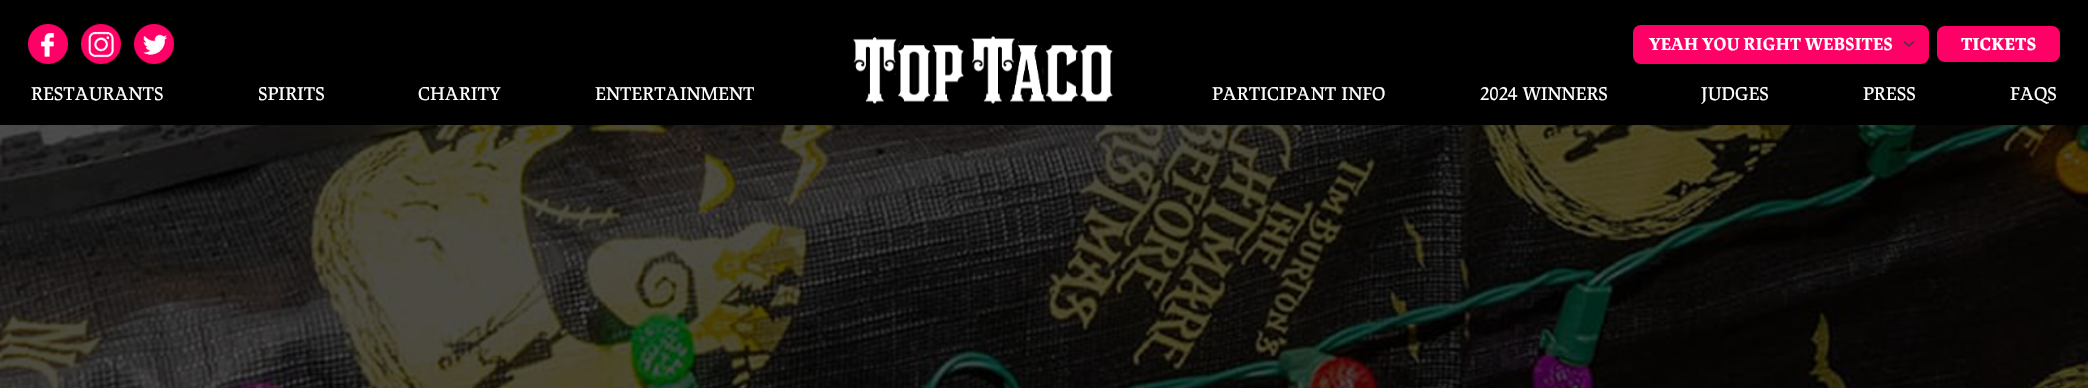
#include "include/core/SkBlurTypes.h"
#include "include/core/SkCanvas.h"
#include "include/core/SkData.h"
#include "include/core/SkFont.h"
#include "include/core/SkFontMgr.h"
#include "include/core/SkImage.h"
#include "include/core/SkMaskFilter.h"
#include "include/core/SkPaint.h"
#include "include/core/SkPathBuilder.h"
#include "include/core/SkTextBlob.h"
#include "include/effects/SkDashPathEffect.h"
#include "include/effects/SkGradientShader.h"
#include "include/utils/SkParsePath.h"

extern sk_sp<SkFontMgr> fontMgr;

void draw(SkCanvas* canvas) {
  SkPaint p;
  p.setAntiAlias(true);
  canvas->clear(SK_ColorBLACK);
  canvas->drawImageRect(SkImages::DeferredFromEncodedData(SkData::MakeFromFileName("images/1.png")), SkRect::MakeLTRB(28, 24, 68, 64), SkSamplingOptions());
  canvas->drawImageRect(SkImages::DeferredFromEncodedData(SkData::MakeFromFileName("images/2.png")), SkRect::MakeLTRB(81, 24, 121, 64), SkSamplingOptions());
  canvas->drawImageRect(SkImages::DeferredFromEncodedData(SkData::MakeFromFileName("images/3.png")), SkRect::MakeLTRB(134, 24, 174, 64), SkSamplingOptions());
  p.setColor(SkColorSetRGB(255, 0, 103));
  canvas->drawRoundRect(SkRect::MakeLTRB(1633, 25, 1929, 64), 8, 8, p);
  p.setStyle(SkPaint::kStroke_Style);
  p.setStrokeWidth(1.5f);
  p.setStrokeCap(SkPaint::kRound_Cap);
  p.setStrokeJoin(SkPaint::kRound_Join);
  p.setColor(SkColorSetRGB(52, 58, 64));
  canvas->drawPath(SkPathBuilder().moveTo(1904.5f, 42).lineTo(1909, 46).lineTo(1913.5f, 42).detach(), p);
  p.setStyle(SkPaint::kFill_Style);
  p.setColor(SkColorSetRGB(255, 0, 103));
  canvas->drawRoundRect(SkRect::MakeLTRB(1937, 26, 2060, 62), 8, 8, p);
  canvas->drawImageRect(SkImages::DeferredFromEncodedData(SkData::MakeFromFileName("images/4.png")), SkRect::MakeLTRB(848, 33, 1113, 104), SkSamplingOptions());
  canvas->drawImageRect(SkImages::DeferredFromEncodedData(SkData::MakeFromFileName("images/5.png")), SkRect::MakeLTRB(0, 125, 2088, 388), SkSamplingOptions());
  SkFont font1(fontMgr->matchFamilyStyle("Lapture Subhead", SkFontStyle::Bold()), 18);
  font1.setSubpixel(true);
  p.setColor(SK_ColorWHITE);
  canvas->drawString("YEAH YOU RIGHT WEBSITES", 1649, 50, font1, p);
  SkFont font2(fontMgr->matchFamilyStyle("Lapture", SkFontStyle::Bold()), 18);
  font2.setSubpixel(true);
  canvas->drawString("TICKETS", 1961, 50, font2, p);
  SkFont font3(fontMgr->matchFamilyStyle("Lapture", SkFontStyle::Normal()), 19);
  font3.setSubpixel(true);
  canvas->drawString("RESTAURANTS", 31, 100, font3, p);
  canvas->drawString("SPIRITS", 258, 100, font3, p);
  canvas->drawString("CHARITY", 418, 100, font3, p);
  canvas->drawString("ENTERTAINMENT", 595, 100, font3, p);
  canvas->drawString("PARTICIPANT INFO", 1212, 100, font3, p);
  canvas->drawString("2024 WINNERS", 1480, 100, font3, p);
  canvas->drawString("JUDGES", 1701, 100, font3, p);
  canvas->drawString("PRESS", 1863, 100, font3, p);
  canvas->drawString("FAQS", 2010, 100, font3, p);
}
